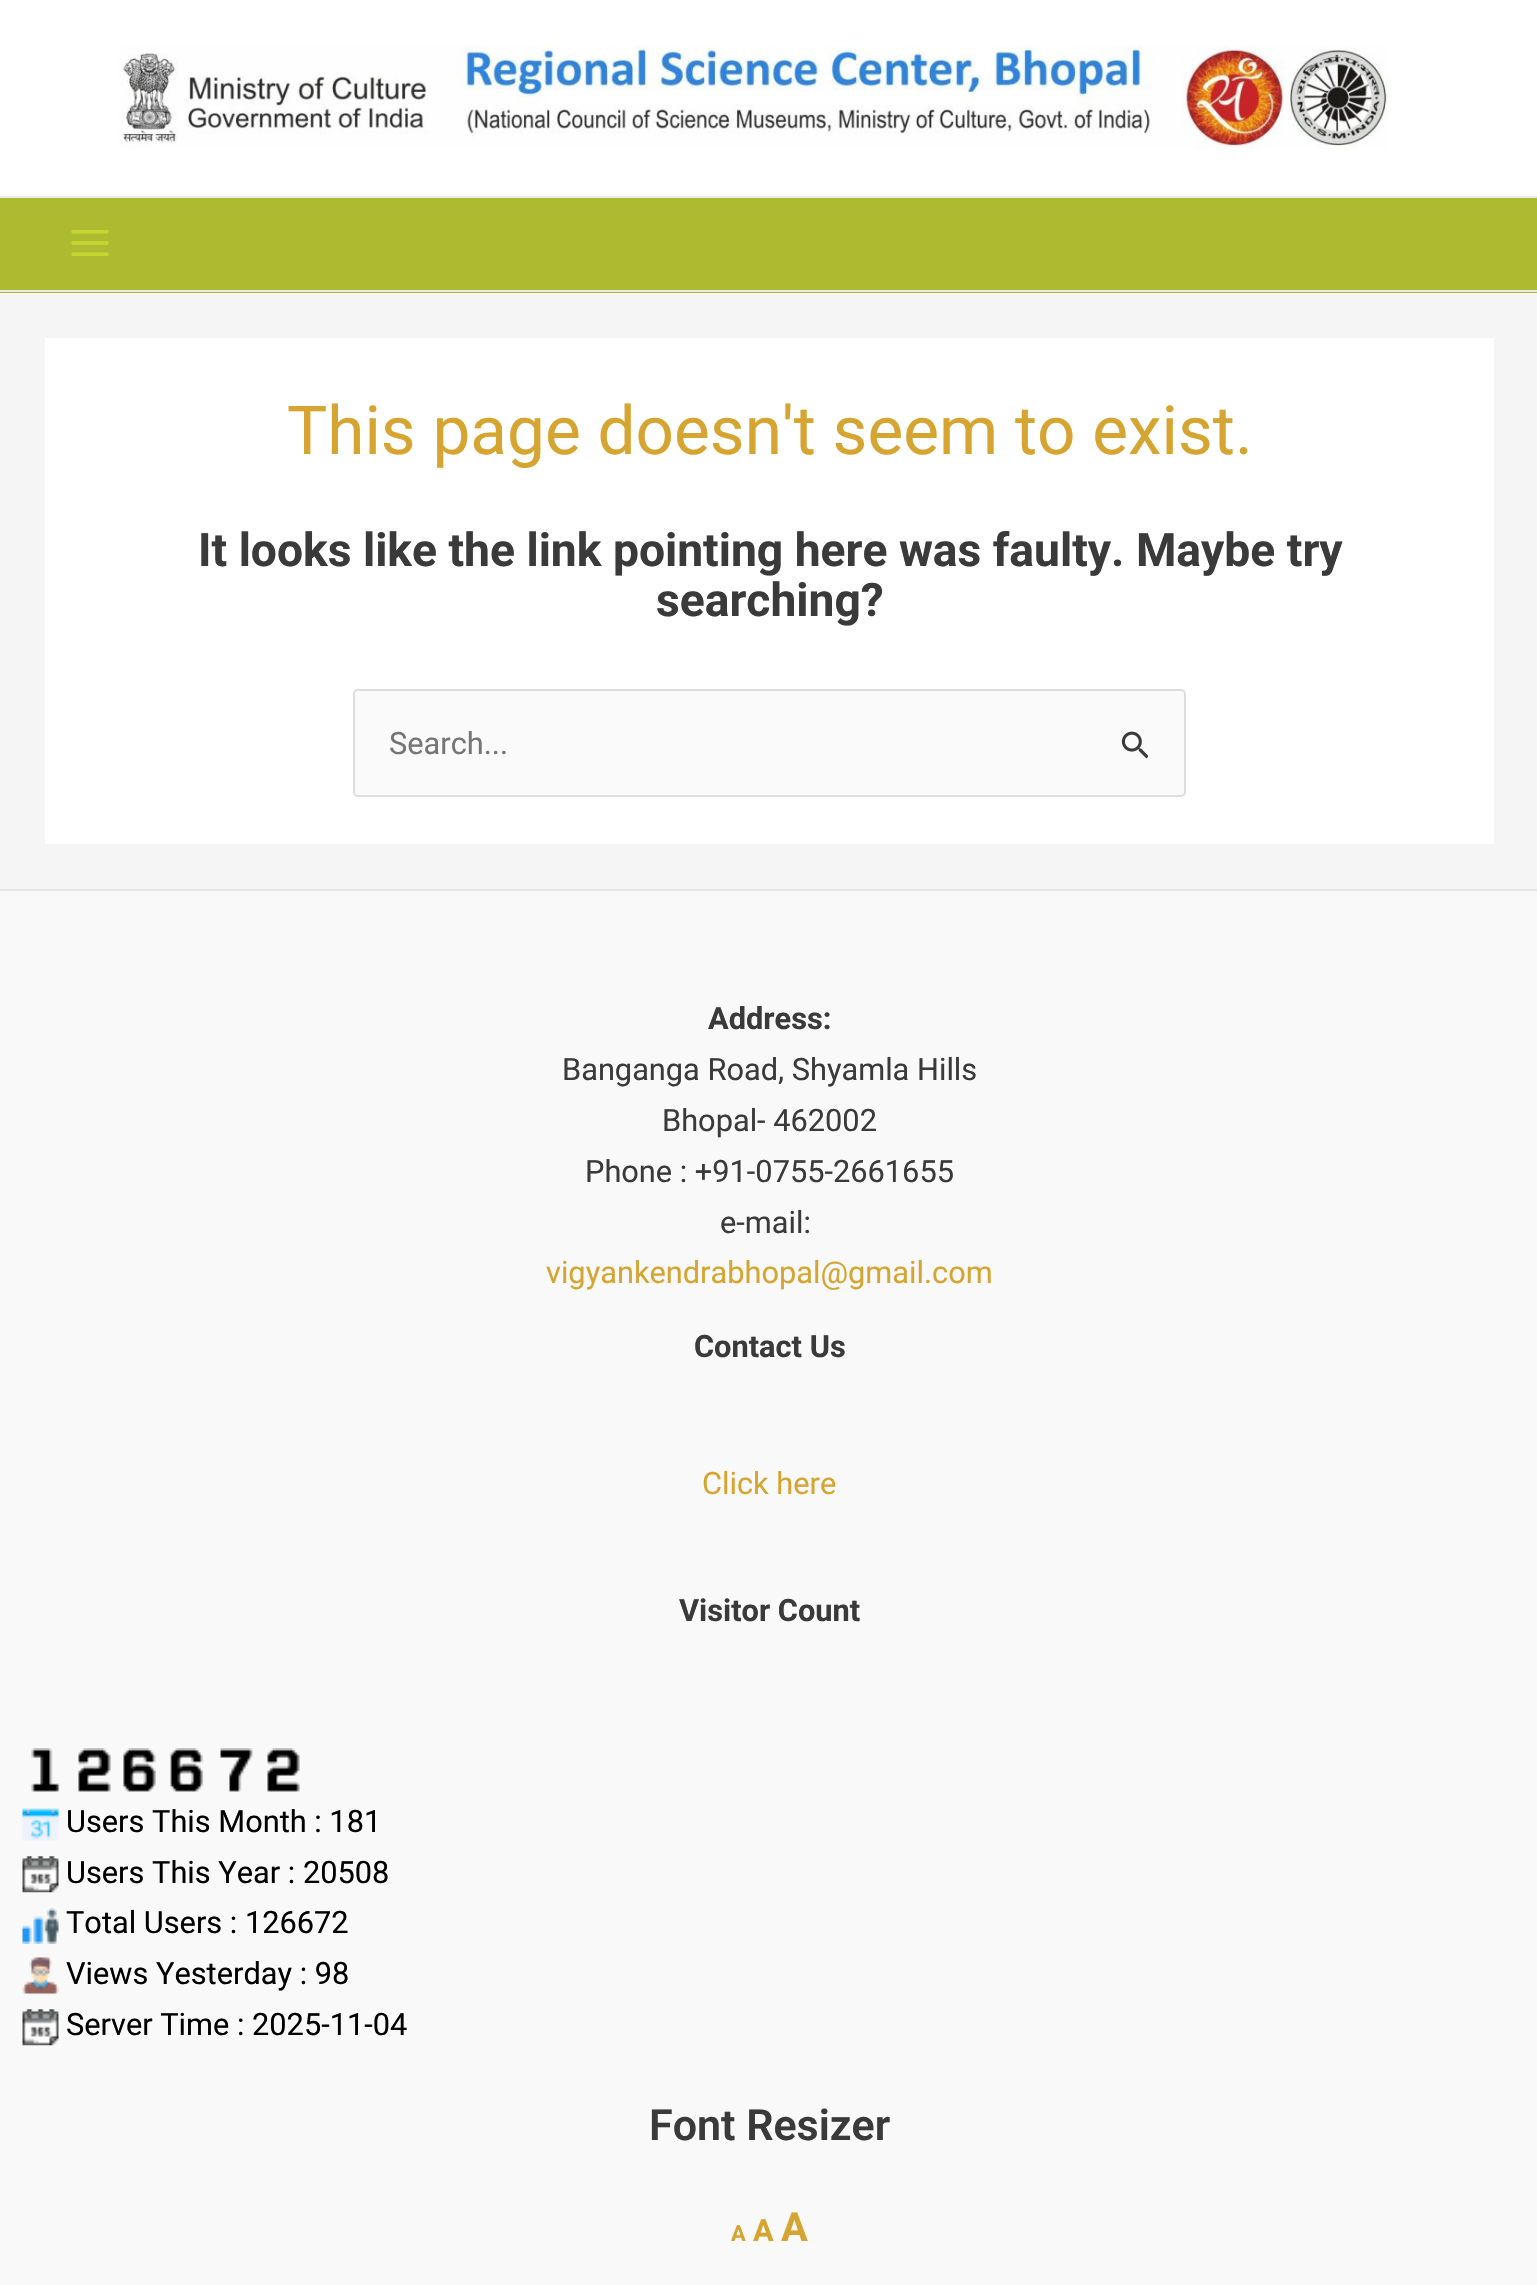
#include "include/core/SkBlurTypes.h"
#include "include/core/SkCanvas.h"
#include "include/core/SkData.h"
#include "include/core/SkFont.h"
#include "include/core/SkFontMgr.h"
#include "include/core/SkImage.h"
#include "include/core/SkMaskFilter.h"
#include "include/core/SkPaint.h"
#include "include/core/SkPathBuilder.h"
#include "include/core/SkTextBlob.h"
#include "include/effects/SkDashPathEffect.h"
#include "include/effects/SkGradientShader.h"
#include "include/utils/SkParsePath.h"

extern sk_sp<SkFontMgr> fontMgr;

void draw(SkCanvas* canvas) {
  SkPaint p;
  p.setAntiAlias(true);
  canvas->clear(SkColorSetRGB(245, 245, 245));
  p.setColor(SK_ColorWHITE);
  canvas->drawRect(SkRect::MakeLTRB(0, 0, 1537, 196), p);
  p.setColor(SkColorSetRGB(234, 234, 234));
  canvas->drawRect(SkRect::MakeLTRB(0, 196, 1537, 198), p);
  canvas->drawImageRect(SkImages::DeferredFromEncodedData(SkData::MakeFromFileName("images/1.png")), SkRect::MakeLTRB(119, 45, 1389, 149), SkSamplingOptions());
  p.setColor(SkColorSetRGB(172, 187, 47));
  canvas->drawRect(SkRect::MakeLTRB(0, 198, 1537, 293), p);
  p.setColor(SkColorSetRGB(234, 234, 234));
  canvas->drawRect(SkRect::MakeLTRB(0, 290, 1537, 292), p);
  canvas->drawImageRect(SkImages::DeferredFromEncodedData(SkData::MakeFromFileName("images/2.png")), SkRect::MakeLTRB(71, 230, 109, 256), SkSamplingOptions());
  p.setColor(SK_ColorWHITE);
  canvas->drawRect(SkRect::MakeLTRB(45, 338, 1494, 844), p);
  p.setColor(SkColorSetRGB(250, 250, 250));
  canvas->drawRoundRect(SkRect::MakeLTRB(354, 690, 1185, 796), 4, 4, p);
  p.setStyle(SkPaint::kStroke_Style);
  p.setStrokeWidth(2);
  p.setColor(SkColorSetRGB(221, 221, 221));
  canvas->drawRoundRect(SkRect::MakeLTRB(354, 690, 1185, 796), 4, 4, p);
  canvas->drawImageRect(SkImages::DeferredFromEncodedData(SkData::MakeFromFileName("images/3.png")), SkRect::MakeLTRB(1121, 731, 1148, 759), SkSamplingOptions());
  p.setStyle(SkPaint::kFill_Style);
  p.setColor(SkColorSetRGB(249, 249, 249));
  canvas->drawRect(SkRect::MakeLTRB(0, 891, 1537, 2285), p);
  p.setColor(SkColorSetRGB(230, 230, 230));
  canvas->drawRect(SkRect::MakeLTRB(0, 889, 1537, 891), p);
  canvas->drawImageRect(SkImages::DeferredFromEncodedData(SkData::MakeFromFileName("images/4.png")), SkRect::MakeLTRB(31, 1748, 60, 1792), SkSamplingOptions());
  canvas->drawImageRect(SkImages::DeferredFromEncodedData(SkData::MakeFromFileName("images/5.png")), SkRect::MakeLTRB(78, 1748, 111, 1792), SkSamplingOptions());
  canvas->drawImageRect(SkImages::DeferredFromEncodedData(SkData::MakeFromFileName("images/6.png")), SkRect::MakeLTRB(123, 1748, 156, 1792), SkSamplingOptions());
  canvas->drawImageRect(SkImages::DeferredFromEncodedData(SkData::MakeFromFileName("images/7.png")), SkRect::MakeLTRB(170, 1748, 204, 1792), SkSamplingOptions());
  canvas->drawImageRect(SkImages::DeferredFromEncodedData(SkData::MakeFromFileName("images/8.png")), SkRect::MakeLTRB(220, 1748, 253, 1792), SkSamplingOptions());
  canvas->drawImageRect(SkImages::DeferredFromEncodedData(SkData::MakeFromFileName("images/9.png")), SkRect::MakeLTRB(267, 1748, 300, 1792), SkSamplingOptions());
  canvas->drawImageRect(SkImages::DeferredFromEncodedData(SkData::MakeFromFileName("images/10.png")), SkRect::MakeLTRB(22, 1808, 59, 1841), SkSamplingOptions());
  canvas->drawImageRect(SkImages::DeferredFromEncodedData(SkData::MakeFromFileName("images/11.png")), SkRect::MakeLTRB(22, 1856, 59, 1893), SkSamplingOptions());
  canvas->drawImageRect(SkImages::DeferredFromEncodedData(SkData::MakeFromFileName("images/12.png")), SkRect::MakeLTRB(22, 1908, 59, 1944), SkSamplingOptions());
  canvas->drawImageRect(SkImages::DeferredFromEncodedData(SkData::MakeFromFileName("images/13.png")), SkRect::MakeLTRB(22, 1957, 59, 1994), SkSamplingOptions());
  canvas->drawImageRect(SkImages::DeferredFromEncodedData(SkData::MakeFromFileName("images/11.png")), SkRect::MakeLTRB(22, 2009, 59, 2046), SkSamplingOptions());
  SkFont font1(fontMgr->matchFamilyStyle("Roboto", SkFontStyle::Normal()), 67.5f);
  font1.setSubpixel(true);
  p.setColor(SkColorSetRGB(214, 165, 49));
  canvas->drawString("This page doesn't seem to exist.", 287, 454, font1, p);
  SkFont font2(fontMgr->matchFamilyStyle("Roboto", SkFontStyle::Bold()), 46.2f);
  font2.setSubpixel(true);
  p.setColor(SkColorSetRGB(58, 58, 58));
  canvas->drawString("It looks like the link pointing here was faulty. Maybe try", 198, 566, font2, p);
  canvas->drawString("searching?", 656, 616, font2, p);
  SkFont font3(fontMgr->matchFamilyStyle("Roboto", SkFontStyle::Normal()), 30.75f);
  font3.setSubpixel(true);
  p.setColor(SkColorSetRGB(117, 117, 117));
  canvas->drawString("Search...", 389, 754, font3, p);
  SkFont font4(fontMgr->matchFamilyStyle("Roboto", SkFontStyle::Bold()), 30.75f);
  font4.setSubpixel(true);
  p.setColor(SkColorSetRGB(58, 58, 58));
  canvas->drawString("Address:", 708, 1029, font4, p);
  canvas->drawString("Banganga Road, Shyamla Hills", 562, 1080, font3, p);
  canvas->drawString("Bhopal- 462002", 662, 1131, font3, p);
  canvas->drawString("Phone : +91-0755-2661655", 585, 1182, font3, p);
  canvas->drawString("e-mail:", 720, 1233, font3, p);
  p.setColor(SkColorSetRGB(214, 165, 49));
  canvas->drawString("vigyankendrabhopal@gmail.com", 546, 1283, font3, p);
  p.setColor(SkColorSetRGB(58, 58, 58));
  canvas->drawString("Contact Us", 694, 1357, font4, p);
  p.setColor(SkColorSetRGB(214, 165, 49));
  canvas->drawString("Click here", 702, 1494, font3, p);
  p.setColor(SkColorSetRGB(58, 58, 58));
  canvas->drawString("Visitor Count", 679, 1621, font4, p);
  p.setColor(SK_ColorBLACK);
  canvas->drawString("Users This Month : 181", 66, 1832, font3, p);
  canvas->drawString("Users This Year : 20508", 66, 1883, font3, p);
  canvas->drawString("Total Users : 126672", 66, 1933, font3, p);
  canvas->drawString("Views Yesterday : 98", 66, 1984, font3, p);
  canvas->drawString("Server Time : 2025-11-04", 66, 2035, font3, p);
  SkFont font5(fontMgr->matchFamilyStyle("Roboto", SkFontStyle(600, SkFontStyle::kNormal_Width, SkFontStyle::kUpright_Slant)), 43);
  font5.setSubpixel(true);
  p.setColor(SkColorSetRGB(58, 58, 58));
  canvas->drawString("Font Resizer", 649, 2140, font5, p);
  SkFont font6(fontMgr->matchFamilyStyle("Roboto", SkFontStyle::Bold()), 22);
  font6.setSubpixel(true);
  p.setColor(SkColorSetRGB(214, 165, 49));
  canvas->drawString("A", 731, 2241, font6, p);
  canvas->drawString("A", 753, 2241, font4, p);
  SkFont font7(fontMgr->matchFamilyStyle("Roboto", SkFontStyle::Bold()), 40);
  font7.setSubpixel(true);
  canvas->drawString("A", 781, 2241, font7, p);
}
